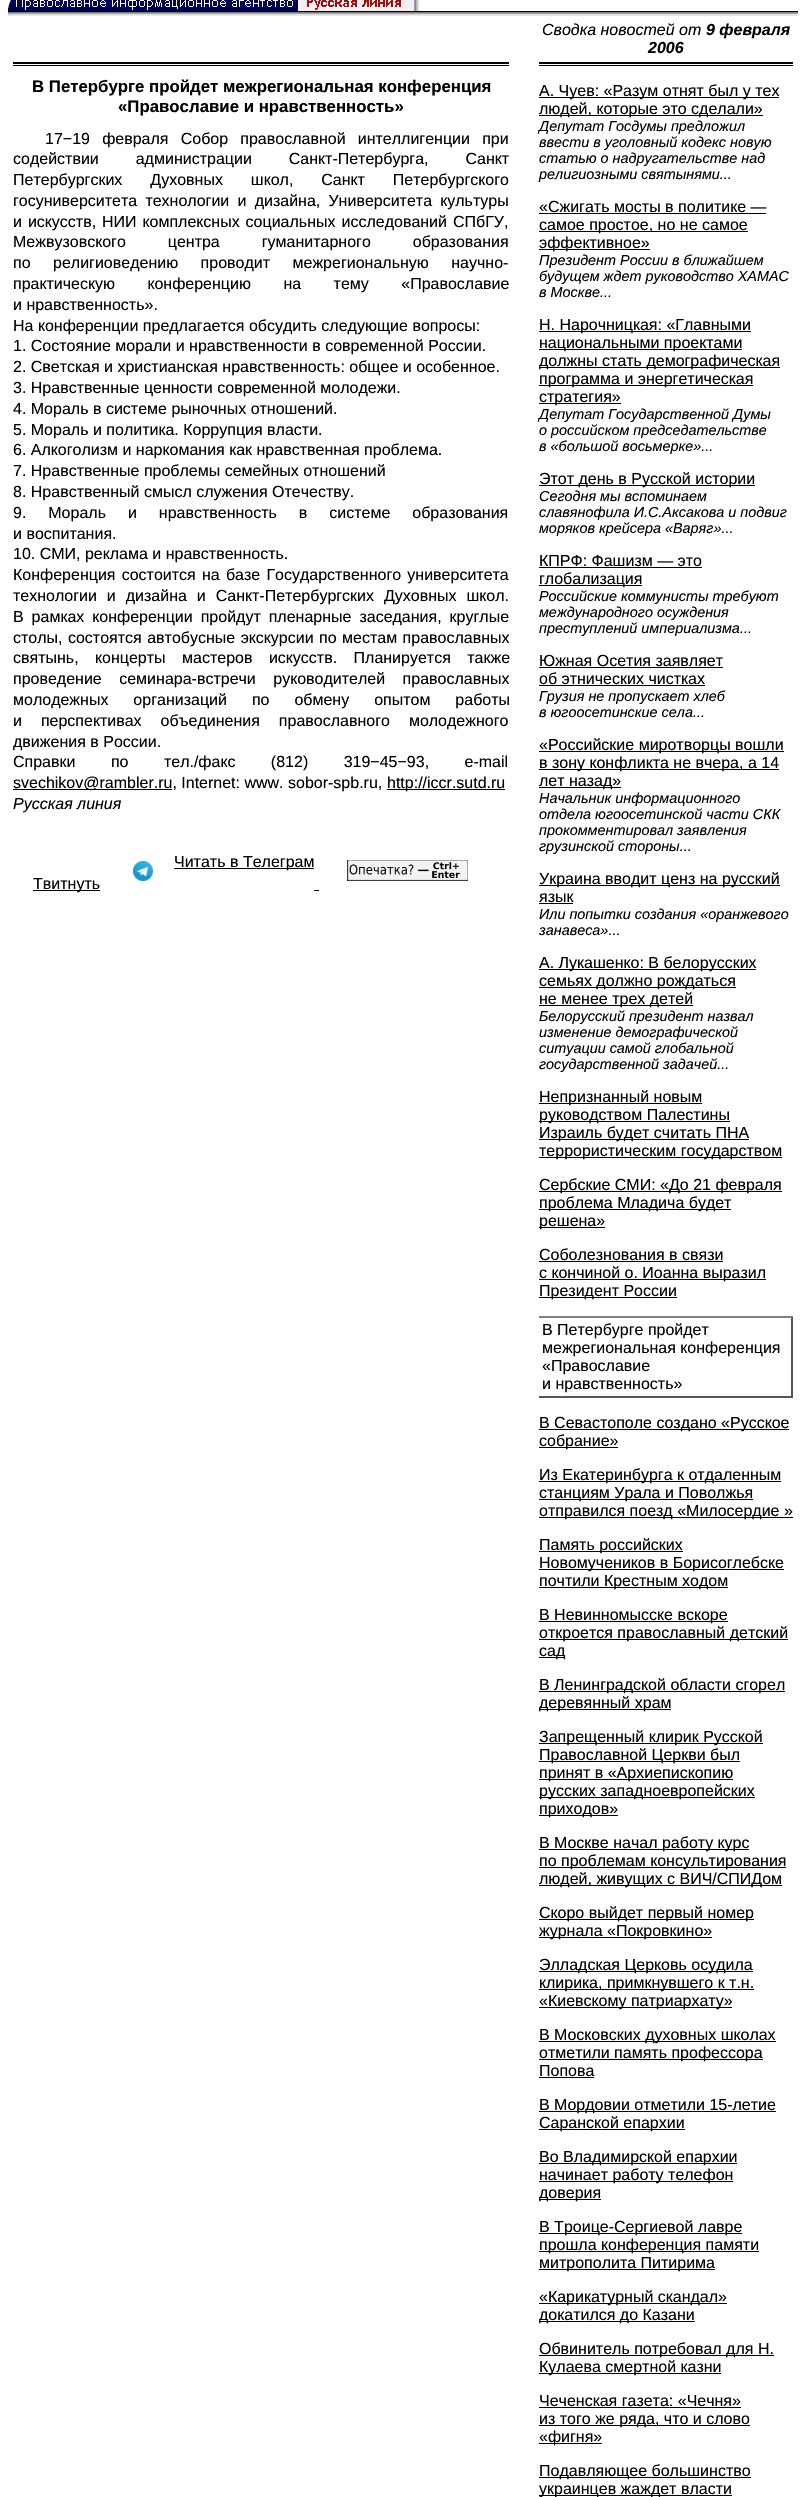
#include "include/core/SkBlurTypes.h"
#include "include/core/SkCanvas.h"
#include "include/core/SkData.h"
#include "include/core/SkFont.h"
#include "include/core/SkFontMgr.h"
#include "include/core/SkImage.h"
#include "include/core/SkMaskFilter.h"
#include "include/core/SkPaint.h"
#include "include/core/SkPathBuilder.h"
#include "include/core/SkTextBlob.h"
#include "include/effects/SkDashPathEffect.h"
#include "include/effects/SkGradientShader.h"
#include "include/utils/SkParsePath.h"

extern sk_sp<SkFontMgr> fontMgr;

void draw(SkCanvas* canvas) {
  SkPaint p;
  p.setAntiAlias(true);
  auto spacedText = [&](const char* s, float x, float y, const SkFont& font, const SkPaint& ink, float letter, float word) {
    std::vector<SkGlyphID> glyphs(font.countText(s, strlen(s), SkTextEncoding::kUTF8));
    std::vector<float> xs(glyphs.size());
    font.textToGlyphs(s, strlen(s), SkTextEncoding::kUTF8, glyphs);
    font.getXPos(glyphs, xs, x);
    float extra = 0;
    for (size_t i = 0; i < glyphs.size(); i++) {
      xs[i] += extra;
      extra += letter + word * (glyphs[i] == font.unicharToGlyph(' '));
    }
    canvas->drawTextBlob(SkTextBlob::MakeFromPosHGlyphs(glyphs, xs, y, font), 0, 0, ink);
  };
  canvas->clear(SK_ColorWHITE);
  canvas->drawImageRect(SkImages::DeferredFromEncodedData(SkData::MakeFromFileName("images/1.png")), SkRect::MakeLTRB(8, 0, 420, 11), SkSamplingOptions());
  p.setColor(SK_ColorBLACK);
  canvas->drawRect(SkRect::MakeLTRB(8, 11, 798, 12), p);
  p.setColor(SkColorSetRGB(128, 128, 128));
  canvas->drawRect(SkRect::MakeLTRB(8, 12, 798, 13), p);
  p.setColor(SkColorSetRGB(162, 162, 162));
  canvas->drawRect(SkRect::MakeLTRB(8, 13, 798, 14), p);
  p.setColor(SkColorSetRGB(221, 221, 221));
  canvas->drawRect(SkRect::MakeLTRB(8, 14, 798, 15), p);
  p.setColor(SkColorSetRGB(232, 232, 232));
  canvas->drawRect(SkRect::MakeLTRB(8, 15, 798, 16), p);
  p.setColor(SK_ColorBLACK);
  canvas->drawRect(SkRect::MakeLTRB(13, 62, 509, 64), p);
  canvas->drawRect(SkRect::MakeLTRB(13, 65, 509, 66), p);
  canvas->drawRect(SkRect::MakeLTRB(13, 789, 172, 790), p);
  canvas->drawRect(SkRect::MakeLTRB(387, 789, 505, 790), p);
  canvas->drawImageRect(SkImages::DeferredFromEncodedData(SkData::MakeFromFileName("images/2.png")), SkRect::MakeLTRB(133, 861, 153, 881), SkSamplingOptions());
  canvas->drawRect(SkRect::MakeLTRB(174, 868, 314, 869), p);
  canvas->drawRect(SkRect::MakeLTRB(314, 890, 319, 891), p);
  canvas->drawImageRect(SkImages::DeferredFromEncodedData(SkData::MakeFromFileName("images/3.png")), SkRect::MakeLTRB(347, 860, 468, 881), SkSamplingOptions());
  canvas->drawRect(SkRect::MakeLTRB(33, 890, 100, 891), p);
  canvas->drawRect(SkRect::MakeLTRB(539, 62, 793, 64), p);
  canvas->drawRect(SkRect::MakeLTRB(539, 65, 793, 66), p);
  canvas->drawRect(SkRect::MakeLTRB(539, 97, 779, 98), p);
  canvas->drawRect(SkRect::MakeLTRB(539, 115, 763, 116), p);
  canvas->drawRect(SkRect::MakeLTRB(539, 213, 766, 214), p);
  canvas->drawRect(SkRect::MakeLTRB(539, 231, 748, 232), p);
  canvas->drawRect(SkRect::MakeLTRB(539, 249, 650, 250), p);
  canvas->drawRect(SkRect::MakeLTRB(539, 331, 751, 332), p);
  canvas->drawRect(SkRect::MakeLTRB(539, 349, 742, 350), p);
  canvas->drawRect(SkRect::MakeLTRB(539, 367, 780, 368), p);
  canvas->drawRect(SkRect::MakeLTRB(539, 385, 753, 386), p);
  canvas->drawRect(SkRect::MakeLTRB(539, 403, 621, 404), p);
  canvas->drawRect(SkRect::MakeLTRB(539, 485, 755, 486), p);
  canvas->drawRect(SkRect::MakeLTRB(539, 567, 702, 568), p);
  canvas->drawRect(SkRect::MakeLTRB(539, 585, 642, 586), p);
  canvas->drawRect(SkRect::MakeLTRB(539, 667, 723, 668), p);
  canvas->drawRect(SkRect::MakeLTRB(539, 685, 705, 686), p);
  canvas->drawRect(SkRect::MakeLTRB(539, 751, 784, 752), p);
  canvas->drawRect(SkRect::MakeLTRB(539, 769, 779, 770), p);
  canvas->drawRect(SkRect::MakeLTRB(539, 787, 621, 788), p);
  canvas->drawRect(SkRect::MakeLTRB(539, 885, 780, 886), p);
  canvas->drawRect(SkRect::MakeLTRB(539, 903, 573, 904), p);
  canvas->drawRect(SkRect::MakeLTRB(539, 969, 756, 970), p);
  canvas->drawRect(SkRect::MakeLTRB(539, 987, 736, 988), p);
  canvas->drawRect(SkRect::MakeLTRB(539, 1005, 693, 1006), p);
  canvas->drawRect(SkRect::MakeLTRB(539, 1103, 702, 1104), p);
  canvas->drawRect(SkRect::MakeLTRB(539, 1121, 730, 1122), p);
  canvas->drawRect(SkRect::MakeLTRB(539, 1139, 749, 1140), p);
  canvas->drawRect(SkRect::MakeLTRB(539, 1157, 782, 1158), p);
  canvas->drawRect(SkRect::MakeLTRB(539, 1191, 782, 1192), p);
  canvas->drawRect(SkRect::MakeLTRB(539, 1209, 731, 1210), p);
  canvas->drawRect(SkRect::MakeLTRB(539, 1227, 605, 1228), p);
  canvas->drawRect(SkRect::MakeLTRB(539, 1261, 723, 1262), p);
  canvas->drawRect(SkRect::MakeLTRB(539, 1279, 766, 1280), p);
  canvas->drawRect(SkRect::MakeLTRB(539, 1297, 677, 1298), p);
  p.setColor(SkColorSetRGB(128, 128, 128));
  canvas->drawPath(SkPathBuilder().moveTo(539, 1316).lineTo(793, 1316).lineTo(791, 1318).lineTo(539, 1318).close().detach(), p);
  p.setColor(SkColorSetRGB(85, 85, 85));
  canvas->drawPath(SkPathBuilder().moveTo(793, 1316).lineTo(793, 1398).lineTo(791, 1396).lineTo(791, 1318).close().detach(), p);
  canvas->drawRect(SkRect::MakeLTRB(539, 1396, 793, 1398), p);
  p.setColor(SK_ColorBLACK);
  canvas->drawRect(SkRect::MakeLTRB(539, 1429, 789, 1430), p);
  canvas->drawRect(SkRect::MakeLTRB(539, 1447, 618, 1448), p);
  canvas->drawRect(SkRect::MakeLTRB(539, 1481, 781, 1482), p);
  canvas->drawRect(SkRect::MakeLTRB(539, 1499, 753, 1500), p);
  canvas->drawRect(SkRect::MakeLTRB(539, 1517, 793, 1518), p);
  canvas->drawRect(SkRect::MakeLTRB(539, 1551, 683, 1552), p);
  canvas->drawRect(SkRect::MakeLTRB(539, 1569, 784, 1570), p);
  canvas->drawRect(SkRect::MakeLTRB(539, 1587, 728, 1588), p);
  canvas->drawRect(SkRect::MakeLTRB(539, 1621, 728, 1622), p);
  canvas->drawRect(SkRect::MakeLTRB(539, 1639, 788, 1640), p);
  canvas->drawRect(SkRect::MakeLTRB(539, 1657, 565, 1658), p);
  canvas->drawRect(SkRect::MakeLTRB(539, 1691, 785, 1692), p);
  canvas->drawRect(SkRect::MakeLTRB(539, 1709, 671, 1710), p);
  canvas->drawRect(SkRect::MakeLTRB(539, 1743, 763, 1744), p);
  canvas->drawRect(SkRect::MakeLTRB(539, 1761, 740, 1762), p);
  canvas->drawRect(SkRect::MakeLTRB(539, 1779, 733, 1780), p);
  canvas->drawRect(SkRect::MakeLTRB(539, 1797, 755, 1798), p);
  canvas->drawRect(SkRect::MakeLTRB(539, 1815, 618, 1816), p);
  canvas->drawRect(SkRect::MakeLTRB(539, 1849, 749, 1850), p);
  canvas->drawRect(SkRect::MakeLTRB(539, 1867, 786, 1868), p);
  canvas->drawRect(SkRect::MakeLTRB(539, 1885, 782, 1886), p);
  canvas->drawRect(SkRect::MakeLTRB(539, 1919, 754, 1920), p);
  canvas->drawRect(SkRect::MakeLTRB(539, 1937, 712, 1938), p);
  canvas->drawRect(SkRect::MakeLTRB(539, 1971, 753, 1972), p);
  canvas->drawRect(SkRect::MakeLTRB(539, 1989, 754, 1990), p);
  canvas->drawRect(SkRect::MakeLTRB(539, 2007, 732, 2008), p);
  canvas->drawRect(SkRect::MakeLTRB(539, 2041, 776, 2042), p);
  canvas->drawRect(SkRect::MakeLTRB(539, 2059, 763, 2060), p);
  canvas->drawRect(SkRect::MakeLTRB(539, 2077, 594, 2078), p);
  canvas->drawRect(SkRect::MakeLTRB(539, 2111, 776, 2112), p);
  canvas->drawRect(SkRect::MakeLTRB(539, 2129, 685, 2130), p);
  canvas->drawRect(SkRect::MakeLTRB(539, 2163, 737, 2164), p);
  canvas->drawRect(SkRect::MakeLTRB(539, 2181, 733, 2182), p);
  canvas->drawRect(SkRect::MakeLTRB(539, 2199, 601, 2200), p);
  canvas->drawRect(SkRect::MakeLTRB(539, 2233, 742, 2234), p);
  canvas->drawRect(SkRect::MakeLTRB(539, 2251, 759, 2252), p);
  canvas->drawRect(SkRect::MakeLTRB(539, 2269, 715, 2270), p);
  canvas->drawRect(SkRect::MakeLTRB(539, 2303, 727, 2304), p);
  canvas->drawRect(SkRect::MakeLTRB(539, 2321, 695, 2322), p);
  canvas->drawRect(SkRect::MakeLTRB(539, 2355, 774, 2356), p);
  canvas->drawRect(SkRect::MakeLTRB(539, 2373, 721, 2374), p);
  canvas->drawRect(SkRect::MakeLTRB(539, 2407, 741, 2408), p);
  canvas->drawRect(SkRect::MakeLTRB(539, 2425, 750, 2426), p);
  canvas->drawRect(SkRect::MakeLTRB(539, 2443, 602, 2444), p);
  canvas->drawRect(SkRect::MakeLTRB(539, 2477, 751, 2478), p);
  canvas->drawRect(SkRect::MakeLTRB(539, 2495, 732, 2496), p);
  SkFont font1(fontMgr->matchFamilyStyle("Liberation Sans", SkFontStyle::Italic()), 16);
  font1.setSubpixel(true);
  canvas->drawString("Сводка новостей от", 542, 35, font1, p);
  SkFont font2(fontMgr->matchFamilyStyle("Liberation Sans", SkFontStyle::BoldItalic()), 16);
  font2.setSubpixel(true);
  canvas->drawString("9 февраля", 706, 35, font2, p);
  canvas->drawString("2006", 648, 53, font2, p);
  SkFont font3(fontMgr->matchFamilyStyle("Liberation Sans", SkFontStyle::Bold()), 16.8f);
  font3.setSubpixel(true);
  canvas->drawString("В Петербурге пройдет межрегиональная конференция", 32, 92, font3, p);
  canvas->drawString("«Православие и нравственность»", 118, 112, font3, p);
  SkFont font4(fontMgr->matchFamilyStyle("Liberation Sans", SkFontStyle::Normal()), 16);
  font4.setSubpixel(true);
  spacedText("17−19 февраля Собор православной интеллигенции при", 45, 144, font4, p, 0, 7.75f);
  spacedText("содействии администрации Санкт-Петербурга, Санкт", 13, 164, font4, p, 0, 32.5f);
  spacedText("Петербургских Духовных школ, Санкт Петербургского", 13, 185, font4, p, 0, 23.5f);
  spacedText("госуниверситета технологии и дизайна, Университета культуры", 13, 206, font4, p, 0, 3.75f);
  spacedText("и искусств, НИИ комплексных социальных исследований СПбГУ,", 13, 227, font4, p, 0, 1.5f);
  spacedText("Межвузовского центра гуманитарного образования", 13, 247, font4, p, 0, 37.5f);
  spacedText("по религиоведению проводит межрегиональную научно-", 13, 268, font4, p, 0, 18);
  spacedText("практическую конференцию на тему «Православие", 13, 289, font4, p, 0, 28);
  canvas->drawString("и нравственность».", 13, 310, font4, p);
  canvas->drawString("На конференции предлагается обсудить следующие вопросы:", 13, 331, font4, p);
  canvas->drawString("1. Состояние морали и нравственности в современной России.", 13, 351, font4, p);
  canvas->drawString("2. Светская и христианская нравственность: общее и особенное.", 13, 372, font4, p);
  canvas->drawString("3. Нравственные ценности современной молодежи.", 13, 393, font4, p);
  canvas->drawString("4. Мораль в системе рыночных отношений.", 13, 414, font4, p);
  canvas->drawString("5. Мораль и политика. Коррупция власти.", 13, 435, font4, p);
  canvas->drawString("6. Алкоголизм и наркомания как нравственная проблема.", 13, 455, font4, p);
  canvas->drawString("7. Нравственные проблемы семейных отношений", 13, 476, font4, p);
  canvas->drawString("8. Нравственный смысл служения Отечеству.", 13, 497, font4, p);
  spacedText("9. Мораль и нравственность в системе образования", 13, 518, font4, p, 0, 17.5f);
  canvas->drawString("и воспитания.", 13, 539, font4, p);
  canvas->drawString("10. СМИ, реклама и нравственность.", 13, 559, font4, p);
  spacedText("Конференция состоится на базе Государственного университета", 13, 580, font4, p, 0, 1.75f);
  spacedText("технологии и дизайна и Санкт-Петербургских Духовных школ.", 13, 601, font4, p, 0, 5.5f);
  spacedText("В рамках конференции пройдут пленарные заседания, круглые", 13, 622, font4, p, 0, 3.5f);
  spacedText("столы, состоятся автобусные экскурсии по местам православных", 13, 643, font4, p, 0, 1);
  spacedText("святынь, концерты мастеров искусств. Планируется также", 13, 663, font4, p, 0, 12);
  spacedText("проведение семинара-встречи руководителей православных", 13, 684, font4, p, 0, 13);
  spacedText("молодежных организаций по обмену опытом работы", 13, 705, font4, p, 0, 20.5f);
  spacedText("и перспективах объединения православного молодежного", 13, 726, font4, p, 0, 14.5f);
  canvas->drawString("движения в России.", 13, 747, font4, p);
  spacedText("Справки по тел./факс (812) 319−45−93, e-mail", 13, 767, font4, p, 0, 31);
  canvas->drawString("svechikov@rambler.ru, Internet: www. sobor-spb.ru,", 13, 788, font4, p);
  canvas->drawString("http://iccr.sutd.ru", 387, 788, font4, p);
  canvas->drawString("Русская линия", 13, 809, font1, p);
  canvas->drawString("Читать в Телеграм", 174, 867, font4, p);
  canvas->drawString("Твитнуть", 33, 889, font4, p);
  canvas->drawString("А. Чуев: «Разум отнят был у тех", 539, 96, font4, p);
  canvas->drawString("людей, которые это сделали»", 539, 114, font4, p);
  SkFont font5(fontMgr->matchFamilyStyle("Liberation Sans", SkFontStyle::Italic()), 14.4f);
  font5.setSubpixel(true);
  canvas->drawString("Депутат Госдумы предложил", 539, 131, font5, p);
  canvas->drawString("ввести в уголовный кодекс новую", 539, 147, font5, p);
  canvas->drawString("статью о надругательстве над", 539, 163, font5, p);
  canvas->drawString("религиозными святынями...", 539, 179, font5, p);
  canvas->drawString("«Сжигать мосты в политике —", 539, 212, font4, p);
  canvas->drawString("самое простое, но не самое", 539, 230, font4, p);
  canvas->drawString("эффективное»", 539, 248, font4, p);
  canvas->drawString("Президент России в ближайшем", 539, 265, font5, p);
  canvas->drawString("будущем ждет руководство ХАМАС", 539, 281, font5, p);
  canvas->drawString("в Москве...", 539, 297, font5, p);
  canvas->drawString("Н. Нарочницкая: «Главными", 539, 330, font4, p);
  canvas->drawString("национальными проектами", 539, 348, font4, p);
  canvas->drawString("должны стать демографическая", 539, 366, font4, p);
  canvas->drawString("программа и энергетическая", 539, 384, font4, p);
  canvas->drawString("стратегия»", 539, 402, font4, p);
  canvas->drawString("Депутат Государственной Думы", 539, 419, font5, p);
  canvas->drawString("о российском председательстве", 539, 435, font5, p);
  canvas->drawString("в «большой восьмерке»...", 539, 451, font5, p);
  canvas->drawString("Этот день в Русской истории", 539, 484, font4, p);
  canvas->drawString("Сегодня мы вспоминаем", 539, 501, font5, p);
  canvas->drawString("славянофила И.С.Аксакова и подвиг", 539, 517, font5, p);
  canvas->drawString("моряков крейсера «Варяг»...", 539, 533, font5, p);
  canvas->drawString("КПРФ: Фашизм — это", 539, 566, font4, p);
  canvas->drawString("глобализация", 539, 584, font4, p);
  canvas->drawString("Российские коммунисты требуют", 539, 601, font5, p);
  canvas->drawString("международного осуждения", 539, 617, font5, p);
  canvas->drawString("преступлений империализма...", 539, 633, font5, p);
  canvas->drawString("Южная Осетия заявляет", 539, 666, font4, p);
  canvas->drawString("об этнических чистках", 539, 684, font4, p);
  canvas->drawString("Грузия не пропускает хлеб", 539, 701, font5, p);
  canvas->drawString("в югоосетинские села...", 539, 717, font5, p);
  canvas->drawString("«Российские миротворцы вошли", 539, 750, font4, p);
  canvas->drawString("в зону конфликта не вчера, а 14", 539, 768, font4, p);
  canvas->drawString("лет назад»", 539, 786, font4, p);
  canvas->drawString("Начальник информационного", 539, 803, font5, p);
  canvas->drawString("отдела югоосетинской части СКК", 539, 819, font5, p);
  canvas->drawString("прокомментировал заявления", 539, 835, font5, p);
  canvas->drawString("грузинской стороны...", 539, 851, font5, p);
  canvas->drawString("Украина вводит ценз на русский", 539, 884, font4, p);
  canvas->drawString("язык", 539, 902, font4, p);
  canvas->drawString("Или попытки создания «оранжевого", 539, 919, font5, p);
  canvas->drawString("занавеса»...", 539, 935, font5, p);
  canvas->drawString("А. Лукашенко: В белорусских", 539, 968, font4, p);
  canvas->drawString("семьях должно рождаться", 539, 986, font4, p);
  canvas->drawString("не менее трех детей", 539, 1004, font4, p);
  canvas->drawString("Белорусский президент назвал", 539, 1021, font5, p);
  canvas->drawString("изменение демографической", 539, 1037, font5, p);
  canvas->drawString("ситуации самой глобальной", 539, 1053, font5, p);
  canvas->drawString("государственной задачей...", 539, 1069, font5, p);
  canvas->drawString("Непризнанный новым", 539, 1102, font4, p);
  canvas->drawString("руководством Палестины", 539, 1120, font4, p);
  canvas->drawString("Израиль будет считать ПНА", 539, 1138, font4, p);
  canvas->drawString("террористическим государством", 539, 1156, font4, p);
  canvas->drawString("Сербские СМИ: «До 21 февраля", 539, 1190, font4, p);
  canvas->drawString("проблема Младича будет", 539, 1208, font4, p);
  canvas->drawString("решена»", 539, 1226, font4, p);
  canvas->drawString("Соболезнования в связи", 539, 1260, font4, p);
  canvas->drawString("с кончиной о. Иоанна выразил", 539, 1278, font4, p);
  canvas->drawString("Президент России", 539, 1296, font4, p);
  canvas->drawString("В Петербурге пройдет", 542, 1335, font4, p);
  canvas->drawString("межрегиональная конференция", 542, 1353, font4, p);
  canvas->drawString("«Православие", 542, 1371, font4, p);
  canvas->drawString("и нравственность»", 542, 1389, font4, p);
  canvas->drawString("В Севастополе создано «Русское", 539, 1428, font4, p);
  canvas->drawString("собрание»", 539, 1446, font4, p);
  canvas->drawString("Из Екатеринбурга к отдаленным", 539, 1480, font4, p);
  canvas->drawString("станциям Урала и Поволжья", 539, 1498, font4, p);
  canvas->drawString("отправился поезд «Милосердие »", 539, 1516, font4, p);
  canvas->drawString("Память российских", 539, 1550, font4, p);
  canvas->drawString("Новомучеников в Борисоглебске", 539, 1568, font4, p);
  canvas->drawString("почтили Крестным ходом", 539, 1586, font4, p);
  canvas->drawString("В Невинномысске вскоре", 539, 1620, font4, p);
  canvas->drawString("откроется православный детский", 539, 1638, font4, p);
  canvas->drawString("сад", 539, 1656, font4, p);
  canvas->drawString("В Ленинградской области сгорел", 539, 1690, font4, p);
  canvas->drawString("деревянный храм", 539, 1708, font4, p);
  canvas->drawString("Запрещенный клирик Русской", 539, 1742, font4, p);
  canvas->drawString("Православной Церкви был", 539, 1760, font4, p);
  canvas->drawString("принят в «Архиепископию", 539, 1778, font4, p);
  canvas->drawString("русских западноевропейских", 539, 1796, font4, p);
  canvas->drawString("приходов»", 539, 1814, font4, p);
  canvas->drawString("В Москве начал работу курс", 539, 1848, font4, p);
  canvas->drawString("по проблемам консультирования", 539, 1866, font4, p);
  canvas->drawString("людей, живущих с ВИЧ/СПИДом", 539, 1884, font4, p);
  canvas->drawString("Скоро выйдет первый номер", 539, 1918, font4, p);
  canvas->drawString("журнала «Покровкино»", 539, 1936, font4, p);
  canvas->drawString("Элладская Церковь осудила", 539, 1970, font4, p);
  canvas->drawString("клирика, примкнувшего к т.н.", 539, 1988, font4, p);
  canvas->drawString("«Киевскому патриархату»", 539, 2006, font4, p);
  canvas->drawString("В Московских духовных школах", 539, 2040, font4, p);
  canvas->drawString("отметили память профессора", 539, 2058, font4, p);
  canvas->drawString("Попова", 539, 2076, font4, p);
  canvas->drawString("В Мордовии отметили 15-летие", 539, 2110, font4, p);
  canvas->drawString("Саранской епархии", 539, 2128, font4, p);
  canvas->drawString("Во Владимирской епархии", 539, 2162, font4, p);
  canvas->drawString("начинает работу телефон", 539, 2180, font4, p);
  canvas->drawString("доверия", 539, 2198, font4, p);
  canvas->drawString("В Троице-Сергиевой лавре", 539, 2232, font4, p);
  canvas->drawString("прошла конференция памяти", 539, 2250, font4, p);
  canvas->drawString("митрополита Питирима", 539, 2268, font4, p);
  canvas->drawString("«Карикатурный скандал»", 539, 2302, font4, p);
  canvas->drawString("докатился до Казани", 539, 2320, font4, p);
  canvas->drawString("Обвинитель потребовал для Н.", 539, 2354, font4, p);
  canvas->drawString("Кулаева смертной казни", 539, 2372, font4, p);
  canvas->drawString("Чеченская газета: «Чечня»", 539, 2406, font4, p);
  canvas->drawString("из того же ряда, что и слово", 539, 2424, font4, p);
  canvas->drawString("«фигня»", 539, 2442, font4, p);
  canvas->drawString("Подавляющее большинство", 539, 2476, font4, p);
  canvas->drawString("украинцев жаждет власти", 539, 2494, font4, p);
}
